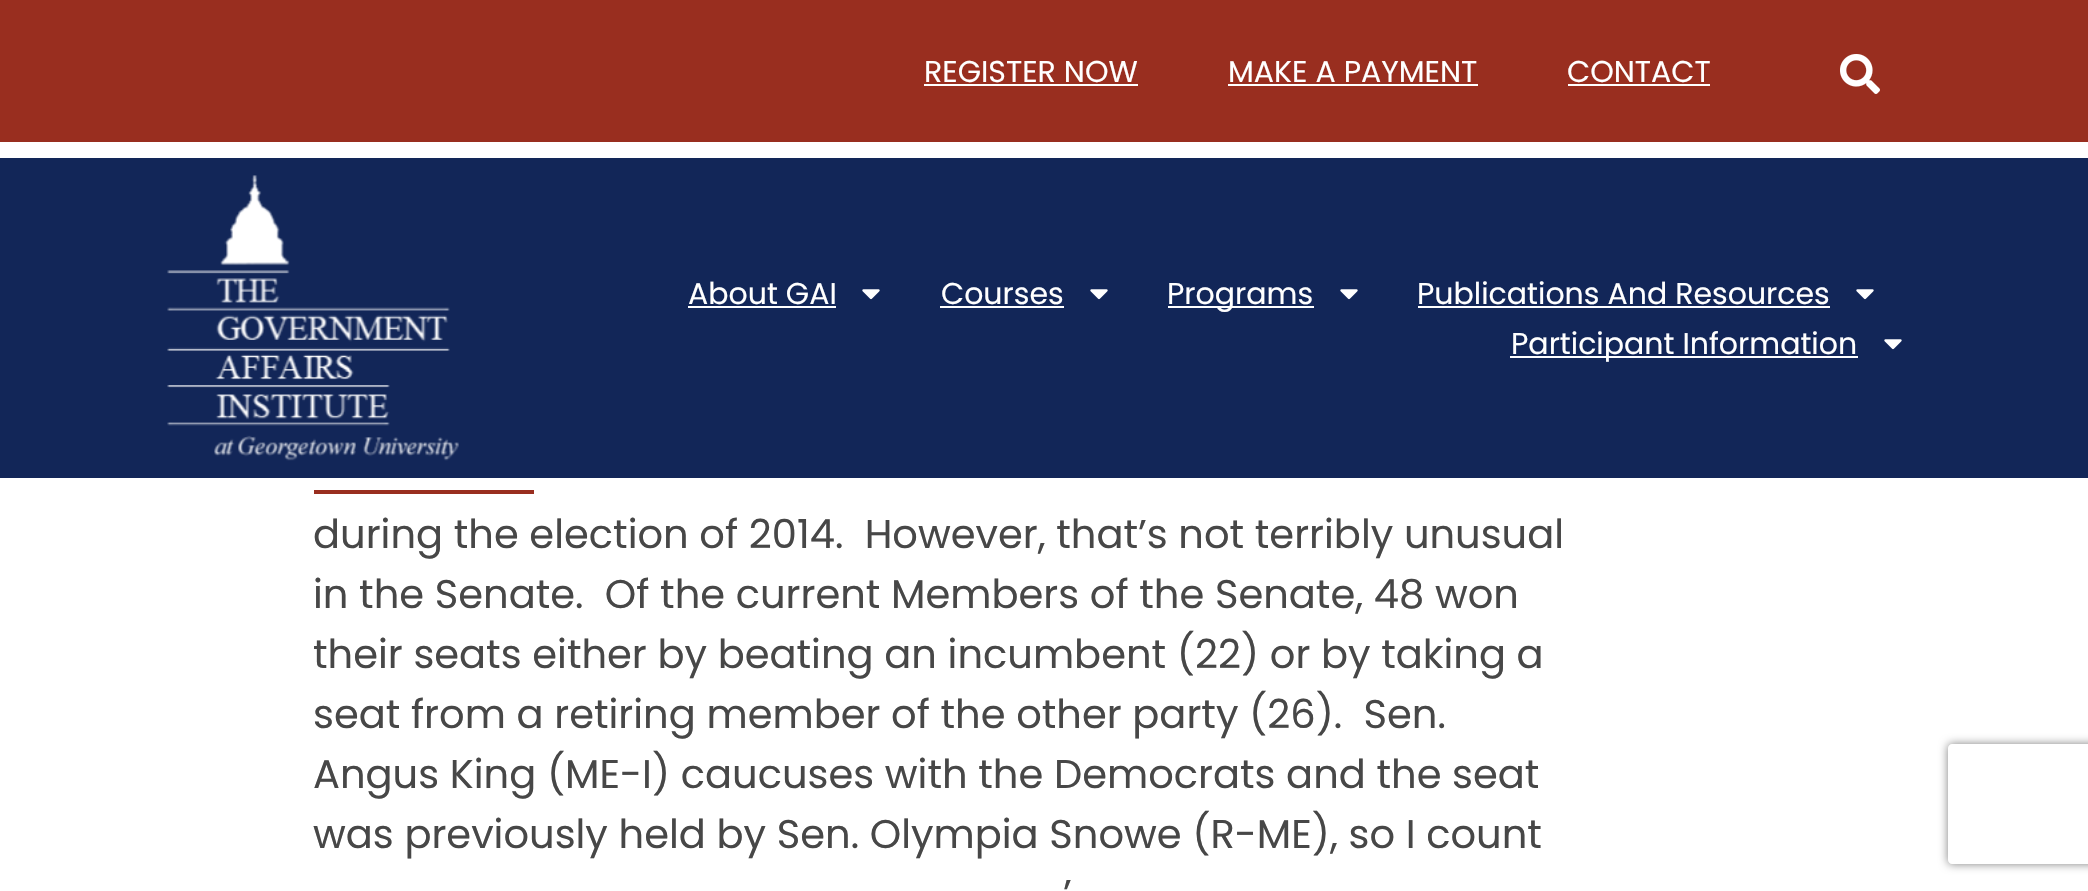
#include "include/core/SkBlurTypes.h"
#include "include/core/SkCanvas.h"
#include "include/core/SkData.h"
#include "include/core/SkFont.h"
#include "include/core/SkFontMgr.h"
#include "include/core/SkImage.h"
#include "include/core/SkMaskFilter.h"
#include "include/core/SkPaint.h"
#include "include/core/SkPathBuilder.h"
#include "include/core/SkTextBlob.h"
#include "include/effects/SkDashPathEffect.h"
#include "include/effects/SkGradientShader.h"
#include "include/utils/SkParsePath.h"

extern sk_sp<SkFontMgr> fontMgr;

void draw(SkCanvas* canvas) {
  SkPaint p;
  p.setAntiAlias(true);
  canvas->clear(SK_ColorWHITE);
  p.setColor(SkColorSetRGB(153, 46, 31));
  canvas->drawRect(SkRect::MakeLTRB(0, 0, 2088, 142), p);
  p.setColor(SK_ColorWHITE);
  canvas->drawRect(SkRect::MakeLTRB(924, 84, 1138, 86), p);
  canvas->drawRect(SkRect::MakeLTRB(1228, 84, 1478, 86), p);
  canvas->drawRect(SkRect::MakeLTRB(1568, 84, 1710, 86), p);
  canvas->drawImageRect(SkImages::DeferredFromEncodedData(SkData::MakeFromFileName("images/1.png")), SkRect::MakeLTRB(1840, 54, 1880, 94), SkSamplingOptions());
  p.setColor(SkColorSetRGB(18, 38, 88));
  canvas->drawRect(SkRect::MakeLTRB(0, 158, 2088, 478), p);
  canvas->drawImageRect(SkImages::DeferredFromEncodedData(SkData::MakeFromFileName("images/2.png")), SkRect::MakeLTRB(167, 175, 459, 461), SkSamplingOptions());
  p.setColor(SK_ColorWHITE);
  canvas->drawRect(SkRect::MakeLTRB(688, 306, 836, 308), p);
  canvas->drawImageRect(SkImages::DeferredFromEncodedData(SkData::MakeFromFileName("images/3.png")), SkRect::MakeLTRB(862, 289, 880, 300), SkSamplingOptions());
  canvas->drawRect(SkRect::MakeLTRB(940, 306, 1064, 308), p);
  canvas->drawImageRect(SkImages::DeferredFromEncodedData(SkData::MakeFromFileName("images/3.png")), SkRect::MakeLTRB(1090, 289, 1108, 300), SkSamplingOptions());
  canvas->drawRect(SkRect::MakeLTRB(1168, 306, 1314, 308), p);
  canvas->drawImageRect(SkImages::DeferredFromEncodedData(SkData::MakeFromFileName("images/3.png")), SkRect::MakeLTRB(1340, 289, 1358, 300), SkSamplingOptions());
  canvas->drawRect(SkRect::MakeLTRB(1418, 306, 1830, 308), p);
  canvas->drawImageRect(SkImages::DeferredFromEncodedData(SkData::MakeFromFileName("images/3.png")), SkRect::MakeLTRB(1856, 289, 1874, 300), SkSamplingOptions());
  canvas->drawRect(SkRect::MakeLTRB(1510, 356, 1858, 358), p);
  canvas->drawImageRect(SkImages::DeferredFromEncodedData(SkData::MakeFromFileName("images/3.png")), SkRect::MakeLTRB(1884, 339, 1902, 350), SkSamplingOptions());
  p.setColor(SkColorSetRGB(153, 46, 31));
  canvas->drawRect(SkRect::MakeLTRB(314, 490, 534, 494), p);
  canvas->save();
  canvas->clipPath(SkPathBuilder(SkPathFillType::kEvenOdd).moveTo(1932, 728).lineTo(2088, 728).lineTo(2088, 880).lineTo(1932, 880).close().moveTo(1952, 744).lineTo(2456, 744).cubicTo(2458, 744, 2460, 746, 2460, 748).lineTo(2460, 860).cubicTo(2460, 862, 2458, 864, 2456, 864).lineTo(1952, 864).cubicTo(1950, 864, 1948, 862, 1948, 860).lineTo(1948, 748).cubicTo(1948, 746, 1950, 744, 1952, 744).close().detach(), true);
  p.setColor(SkColorSetRGB(128, 128, 128));
  p.setMaskFilter(SkMaskFilter::MakeBlur(kNormal_SkBlurStyle, 5));
  canvas->drawRoundRect(SkRect::MakeLTRB(1948, 744, 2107, 864), 4, 4, p);
  p.setMaskFilter(nullptr);
  canvas->restore();
  SkFont font1(fontMgr->matchFamilyStyle("Poppins", SkFontStyle::Normal()), 30);
  font1.setSubpixel(true);
  p.setColor(SK_ColorWHITE);
  canvas->drawString("REGISTER NOW", 924, 82, font1, p);
  canvas->drawString("MAKE A PAYMENT", 1228, 82, font1, p);
  canvas->drawString("CONTACT", 1567, 82, font1, p);
  canvas->drawString("About GAI", 688, 304, font1, p);
  canvas->drawString("Courses", 941, 304, font1, p);
  canvas->drawString("Programs", 1167, 304, font1, p);
  canvas->drawString("Publications And Resources", 1417, 304, font1, p);
  canvas->drawString("Participant Information", 1511, 354, font1, p);
  SkFont font2(fontMgr->matchFamilyStyle("Poppins", SkFontStyle::Normal()), 40);
  font2.setSubpixel(true);
  p.setColor(SkColorSetRGB(71, 71, 71));
  canvas->drawString("during the election of 2014.  However, that’s not terribly unusual", 313, 548, font2, p);
  canvas->drawString("in the Senate.  Of the current Members of the Senate, 48 won", 313, 608, font2, p);
  canvas->drawString("their seats either by beating an incumbent (22) or by taking a", 313, 668, font2, p);
  canvas->drawString("seat from a retiring member of the other party (26).  Sen.", 313, 728, font2, p);
  canvas->drawString("Angus King (ME-I) caucuses with the Democrats and the seat", 313, 788, font2, p);
  canvas->drawString("was previously held by Sen. Olympia Snowe (R-ME), so I count", 313, 848, font2, p);
  canvas->drawString("’", 1063, 908, font2, p);
}
